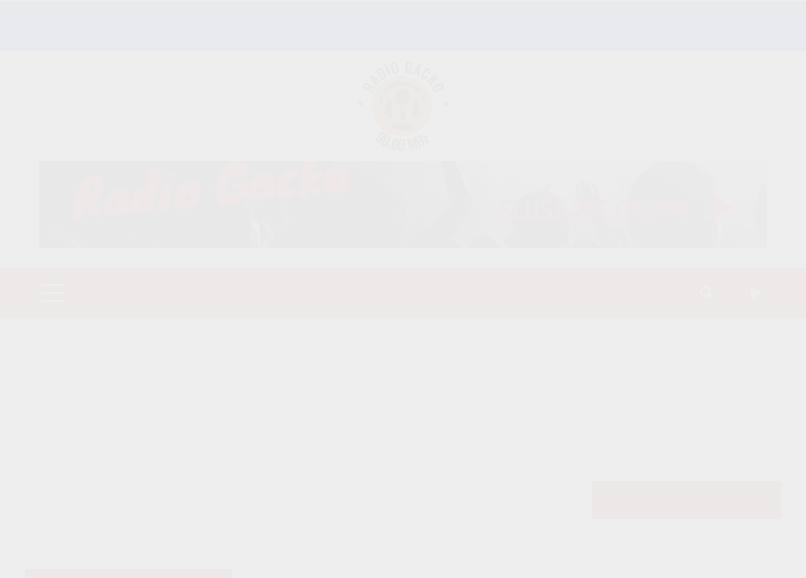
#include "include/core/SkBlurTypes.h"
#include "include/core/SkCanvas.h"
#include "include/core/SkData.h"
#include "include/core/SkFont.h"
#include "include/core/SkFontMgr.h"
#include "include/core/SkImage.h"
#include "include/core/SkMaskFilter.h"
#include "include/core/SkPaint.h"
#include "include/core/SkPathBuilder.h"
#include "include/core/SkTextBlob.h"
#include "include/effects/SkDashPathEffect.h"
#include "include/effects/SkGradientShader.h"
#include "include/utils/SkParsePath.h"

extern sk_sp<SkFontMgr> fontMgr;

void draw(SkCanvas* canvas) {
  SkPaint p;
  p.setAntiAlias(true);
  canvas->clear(SkColorSetRGB(238, 238, 238));
  p.setColor(SkColorSetRGB(232, 234, 237));
  canvas->drawRect(SkRect::MakeLTRB(0, 1, 806, 51), p);
  canvas->drawImageRect(SkImages::DeferredFromEncodedData(SkData::MakeFromFileName("images/1.png")), SkRect::MakeLTRB(358, 61, 449, 151), SkSamplingOptions());
  canvas->drawImageRect(SkImages::DeferredFromEncodedData(SkData::MakeFromFileName("images/2.png")), SkRect::MakeLTRB(39, 161, 767, 248), SkSamplingOptions());
  p.setColor(SkColorSetRGB(237, 233, 232));
  canvas->drawRect(SkRect::MakeLTRB(0, 268, 806, 318), p);
  p.setColor(SkColorSetRGB(239, 239, 239));
  canvas->drawRect(SkRect::MakeLTRB(41, 292, 64, 294), p);
  canvas->drawRect(SkRect::MakeLTRB(41, 284, 64, 286), p);
  canvas->drawRect(SkRect::MakeLTRB(41, 300, 64, 302), p);
  canvas->drawImageRect(SkImages::DeferredFromEncodedData(SkData::MakeFromFileName("images/3.png")), SkRect::MakeLTRB(700, 286, 713, 299), SkSamplingOptions());
  canvas->drawImageRect(SkImages::DeferredFromEncodedData(SkData::MakeFromFileName("images/4.png")), SkRect::MakeLTRB(751, 286, 762, 299), SkSamplingOptions());
  p.setColor(SkColorSetRGB(237, 232, 232));
  canvas->drawPath(SkPathBuilder().moveTo(592, 481).lineTo(778, 481).cubicTo(779.5f, 481, 781, 482.5f, 781, 484).lineTo(781, 516).cubicTo(781, 517.5f, 779.5f, 519, 778, 519).lineTo(592, 519).close().detach(), p);
  canvas->drawRect(SkRect::MakeLTRB(25, 569, 232, 578), p);
}
